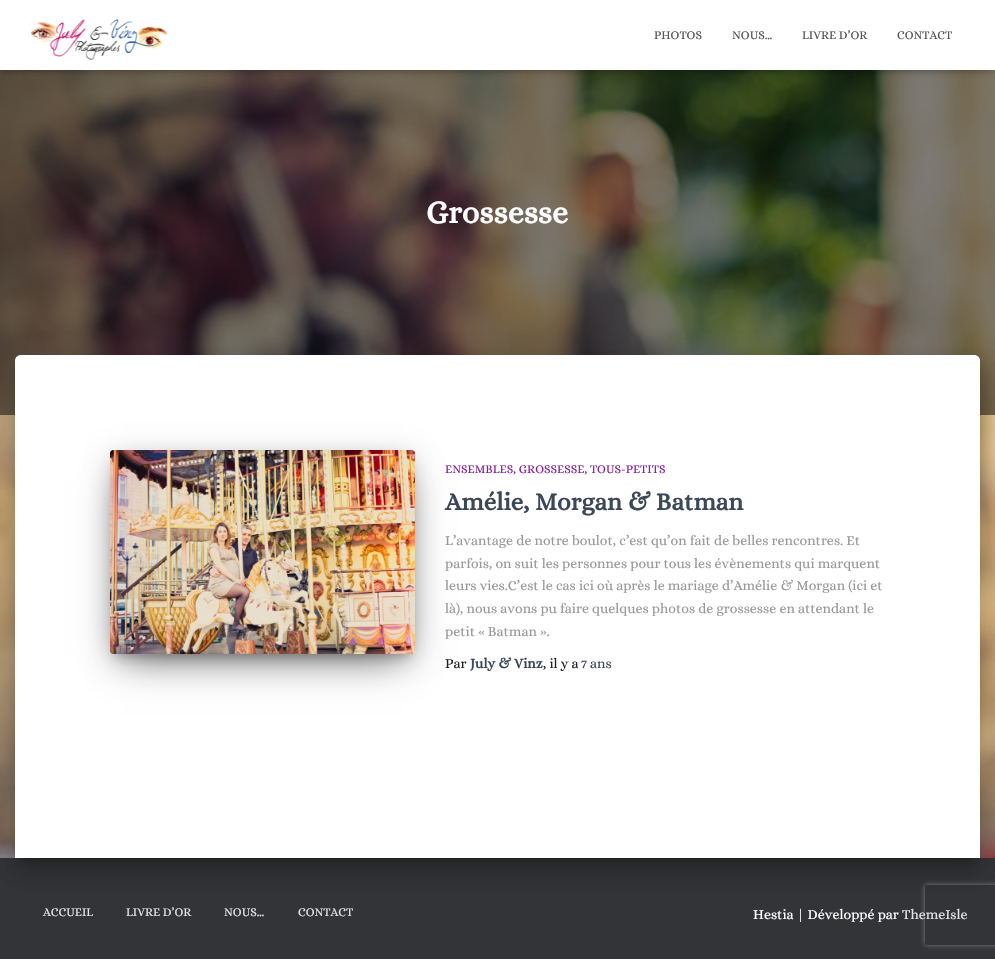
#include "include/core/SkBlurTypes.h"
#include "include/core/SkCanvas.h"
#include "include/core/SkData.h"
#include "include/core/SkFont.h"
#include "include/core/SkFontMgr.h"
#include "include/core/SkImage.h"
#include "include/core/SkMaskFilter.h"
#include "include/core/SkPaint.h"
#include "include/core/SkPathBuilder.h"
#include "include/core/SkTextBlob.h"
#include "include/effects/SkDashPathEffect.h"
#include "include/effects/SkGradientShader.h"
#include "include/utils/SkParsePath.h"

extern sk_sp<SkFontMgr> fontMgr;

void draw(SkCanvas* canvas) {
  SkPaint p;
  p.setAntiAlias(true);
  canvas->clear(SK_ColorWHITE);
  canvas->drawImageRect(SkImages::DeferredFromEncodedData(SkData::MakeFromFileName("images/1.png")), SkRect::MakeLTRB(0, 70, 995, 858), SkSamplingOptions());
  p.setColor(SkColorSetARGB(128, 0, 0, 0));
  canvas->drawRect(SkRect::MakeLTRB(0, 70, 995, 415), p);
  p.setColor(SkColorSetARGB(26, 0, 0, 0));
  p.setMaskFilter(SkMaskFilter::MakeBlur(kNormal_SkBlurStyle, 2.5f));
  canvas->drawRect(SkRect::MakeLTRB(2, 6, 993, 72), p);
  p.setMaskFilter(nullptr);
  p.setColor(SkColorSetARGB(31, 0, 0, 0));
  p.setMaskFilter(SkMaskFilter::MakeBlur(kNormal_SkBlurStyle, 5));
  canvas->drawRect(SkRect::MakeLTRB(0, 1, 995, 71), p);
  p.setMaskFilter(nullptr);
  p.setColor(SkColorSetARGB(107, 0, 0, 0));
  p.setMaskFilter(SkMaskFilter::MakeBlur(kNormal_SkBlurStyle, 5));
  canvas->drawRect(SkRect::MakeLTRB(6, 7, 989, 65), p);
  p.setMaskFilter(nullptr);
  p.setColor(SK_ColorWHITE);
  canvas->drawRect(SkRect::MakeLTRB(0, 0, 995, 70), p);
  canvas->drawImageRect(SkImages::DeferredFromEncodedData(SkData::MakeFromFileName("images/2.png")), SkRect::MakeLTRB(30, 19, 168, 60), SkSamplingOptions());
  p.setColor(SkColorSetRGB(50, 52, 55));
  canvas->drawRect(SkRect::MakeLTRB(0, 858, 995, 959), p);
  p.setColor(SkColorSetARGB(51, 0, 0, 0));
  p.setMaskFilter(SkMaskFilter::MakeBlur(kNormal_SkBlurStyle, 5));
  canvas->drawRoundRect(SkRect::MakeLTRB(20, 368, 975, 861), 1, 1, p);
  p.setMaskFilter(nullptr);
  p.setColor(SkColorSetARGB(31, 0, 0, 0));
  p.setMaskFilter(SkMaskFilter::MakeBlur(kNormal_SkBlurStyle, 15));
  canvas->drawRoundRect(SkRect::MakeLTRB(10, 356, 985, 869), 11, 11, p);
  p.setMaskFilter(nullptr);
  p.setColor(SkColorSetARGB(36, 0, 0, 0));
  p.setMaskFilter(SkMaskFilter::MakeBlur(kNormal_SkBlurStyle, 12));
  canvas->drawRoundRect(SkRect::MakeLTRB(13, 369, 982, 876), 8, 8, p);
  p.setMaskFilter(nullptr);
  p.setColor(SK_ColorWHITE);
  canvas->drawPath(SkPathBuilder().moveTo(21, 355).lineTo(974, 355).cubicTo(977.5f, 355, 980, 357.5f, 980, 361).lineTo(980, 858).lineTo(15, 858).lineTo(15, 361).cubicTo(15, 357.5f, 17.5f, 355, 21, 355).close().detach(), p);
  p.setColor(SkColorSetARGB(51, 0, 0, 0));
  p.setMaskFilter(SkMaskFilter::MakeBlur(kNormal_SkBlurStyle, 5));
  canvas->drawRect(SkRect::MakeLTRB(115, 463, 410, 657), p);
  p.setMaskFilter(nullptr);
  p.setColor(SkColorSetARGB(31, 0, 0, 0));
  p.setMaskFilter(SkMaskFilter::MakeBlur(kNormal_SkBlurStyle, 12.5f));
  canvas->drawRoundRect(SkRect::MakeLTRB(110, 454, 415, 658), 3, 3, p);
  p.setMaskFilter(nullptr);
  p.setColor(SkColorSetARGB(143, 0, 0, 0));
  p.setMaskFilter(SkMaskFilter::MakeBlur(kNormal_SkBlurStyle, 19));
  canvas->drawRect(SkRect::MakeLTRB(122, 478, 403, 658), p);
  p.setMaskFilter(nullptr);
  canvas->drawImageRect(SkImages::DeferredFromEncodedData(SkData::MakeFromFileName("images/3.png")), SkRect::MakeLTRB(110, 450, 415, 654), SkSamplingOptions());
  canvas->save();
  canvas->clipPath(SkPathBuilder(SkPathFillType::kEvenOdd).moveTo(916, 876).lineTo(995, 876).lineTo(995, 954).lineTo(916, 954).close().moveTo(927, 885).lineTo(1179, 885).cubicTo(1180, 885, 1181, 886, 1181, 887).lineTo(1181, 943).cubicTo(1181, 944, 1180, 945, 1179, 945).lineTo(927, 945).cubicTo(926, 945, 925, 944, 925, 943).lineTo(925, 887).cubicTo(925, 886, 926, 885, 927, 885).close().detach(), true);
  p.setColor(SkColorSetRGB(128, 128, 128));
  p.setMaskFilter(SkMaskFilter::MakeBlur(kNormal_SkBlurStyle, 2.5f));
  canvas->drawRoundRect(SkRect::MakeLTRB(925, 885, 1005, 945), 2, 2, p);
  p.setMaskFilter(nullptr);
  canvas->restore();
  SkFont font1(fontMgr->matchFamilyStyle("Alice", SkFontStyle::Normal()), 12);
  font1.setSubpixel(true);
  p.setColor(SkColorSetRGB(85, 85, 85));
  canvas->drawString("PHOTOS", 654, 39, font1, p);
  canvas->drawString("NOUS…", 732, 39, font1, p);
  canvas->drawString("LIVRE D’OR", 802, 39, font1, p);
  canvas->drawString("CONTACT", 897, 39, font1, p);
  SkFont font2(fontMgr->matchFamilyStyle("Alice", SkFontStyle::Bold()), 32);
  font2.setSubpixel(true);
  p.setColor(SK_ColorWHITE);
  canvas->drawString("Grossesse", 426, 223, font2, p);
  p.setColor(SkColorSetRGB(137, 34, 155));
  canvas->drawString("ENSEMBLES, GROSSESSE, TOUS-PETITS", 445, 473, font1, p);
  SkFont font3(fontMgr->matchFamilyStyle("Alice", SkFontStyle::Bold()), 25);
  font3.setSubpixel(true);
  p.setColor(SkColorSetRGB(60, 72, 88));
  canvas->drawString("Amélie, Morgan & Batman", 445, 510, font3, p);
  SkFont font4(fontMgr->matchFamilyStyle("Alice", SkFontStyle::Normal()), 14);
  font4.setSubpixel(true);
  p.setColor(SkColorSetRGB(153, 153, 153));
  canvas->drawString("L’avantage de notre boulot, c’est qu’on fait de belles rencontres. Et", 445, 545, font4, p);
  canvas->drawString("parfois, on suit les personnes pour tous les évènements qui marquent", 445, 568, font4, p);
  canvas->drawString("leurs vies.C’est le cas ici où après le mariage d’Amélie & Morgan (ici et", 445, 590, font4, p);
  canvas->drawString("là), nous avons pu faire quelques photos de grossesse en attendant le", 445, 613, font4, p);
  canvas->drawString("petit « Batman ».", 445, 636, font4, p);
  p.setColor(SkColorSetRGB(33, 33, 33));
  canvas->drawString("Par", 445, 668, font4, p);
  SkFont font5(fontMgr->matchFamilyStyle("Alice", SkFontStyle::Bold()), 14);
  font5.setSubpixel(true);
  p.setColor(SkColorSetRGB(60, 72, 88));
  canvas->drawString("July & Vinz", 470, 668, font5, p);
  p.setColor(SkColorSetRGB(33, 33, 33));
  canvas->drawString(", il y a", 543, 668, font4, p);
  p.setColor(SkColorSetRGB(60, 72, 88));
  canvas->drawString("7 ans", 581, 668, font4, p);
  p.setColor(SkColorSetRGB(226, 227, 227));
  canvas->drawString("ACCUEIL", 43, 916, font1, p);
  canvas->drawString("LIVRE D’OR", 126, 916, font1, p);
  canvas->drawString("NOUS…", 224, 916, font1, p);
  canvas->drawString("CONTACT", 298, 916, font1, p);
  p.setColor(SK_ColorWHITE);
  canvas->drawString("Hestia | Développé par", 753, 919, font4, p);
  p.setColor(SkColorSetRGB(226, 227, 227));
  canvas->drawString("ThemeIsle", 902, 919, font4, p);
}
